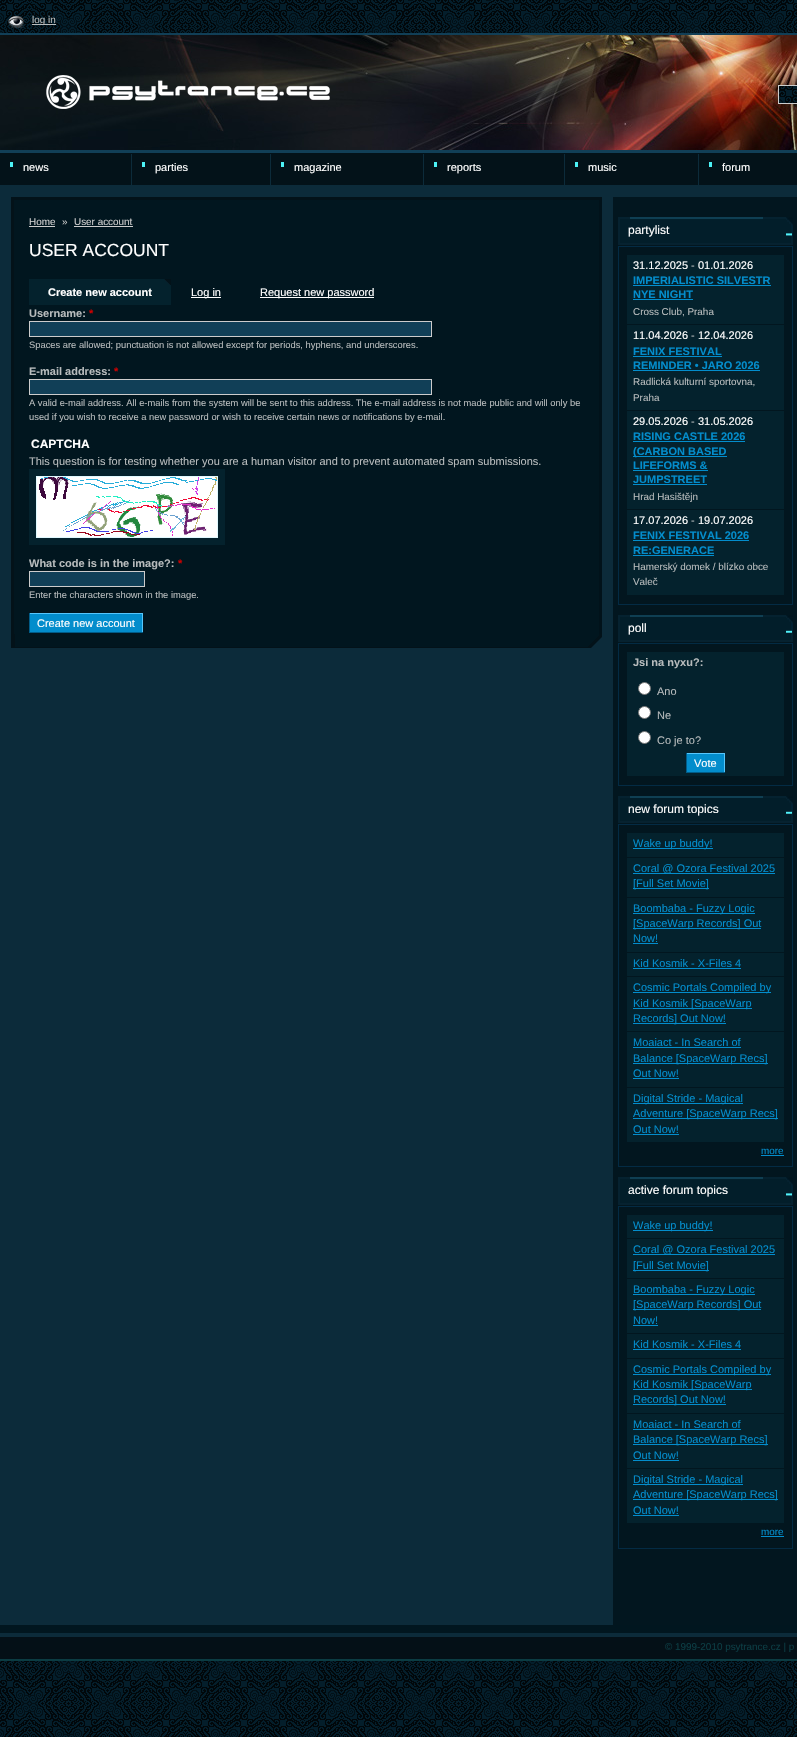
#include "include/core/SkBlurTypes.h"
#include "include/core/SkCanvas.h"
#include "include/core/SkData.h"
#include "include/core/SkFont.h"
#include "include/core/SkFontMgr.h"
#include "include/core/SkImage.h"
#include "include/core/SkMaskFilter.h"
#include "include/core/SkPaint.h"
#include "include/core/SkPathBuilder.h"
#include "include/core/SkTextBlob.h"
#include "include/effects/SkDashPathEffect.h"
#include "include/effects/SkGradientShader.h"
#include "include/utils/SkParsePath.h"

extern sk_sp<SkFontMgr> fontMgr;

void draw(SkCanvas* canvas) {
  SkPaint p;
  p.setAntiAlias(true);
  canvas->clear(SK_ColorWHITE);
  canvas->drawImageRect(SkImages::DeferredFromEncodedData(SkData::MakeFromFileName("images/1.png")), SkRect::MakeLTRB(0, 0, 797, 1737), SkSamplingOptions());
  p.setColor(SkColorSetRGB(17, 63, 87));
  canvas->drawRect(SkRect::MakeLTRB(0, 33, 797, 35), p);
  canvas->drawImageRect(SkImages::DeferredFromEncodedData(SkData::MakeFromFileName("images/2.png")), SkRect::MakeLTRB(8, 16, 24, 28), SkSamplingOptions());
  p.setColor(SkColorSetRGB(183, 187, 188));
  canvas->drawRect(SkRect::MakeLTRB(32, 24, 56, 25), p);
  canvas->drawImageRect(SkImages::DeferredFromEncodedData(SkData::MakeFromFileName("images/3.png")), SkRect::MakeLTRB(0, 35, 797, 150), SkSamplingOptions());
  canvas->drawImageRect(SkImages::DeferredFromEncodedData(SkData::MakeFromFileName("images/4.png")), SkRect::MakeLTRB(46, 75, 330, 109), SkSamplingOptions());
  canvas->drawImageRect(SkImages::DeferredFromEncodedData(SkData::MakeFromFileName("images/5.png")), SkRect::MakeLTRB(779, 86, 797, 103), SkSamplingOptions());
  p.setStyle(SkPaint::kStroke_Style);
  p.setStrokeWidth(1);
  p.setColor(SkColorSetRGB(204, 204, 204));
  canvas->drawRect(SkRect::MakeLTRB(778.5f, 85.5f, 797.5f, 103.5f), p);
  p.setStyle(SkPaint::kFill_Style);
  p.setColor(SkColorSetRGB(3, 18, 25));
  canvas->drawRect(SkRect::MakeLTRB(0, 153, 797, 185), p);
  p.setColor(SkColorSetRGB(17, 63, 87));
  canvas->drawRect(SkRect::MakeLTRB(0, 150, 797, 153), p);
  p.setColor(SkColorSetRGB(12, 43, 58));
  canvas->drawRect(SkRect::MakeLTRB(0, 185, 797, 189), p);
  p.setColor(SkColorSetRGB(76, 241, 245));
  canvas->drawRect(SkRect::MakeLTRB(10, 162, 13, 167), p);
  p.setColor(SkColorSetRGB(12, 43, 58));
  canvas->drawRect(SkRect::MakeLTRB(131, 154, 132, 185), p);
  p.setColor(SkColorSetRGB(76, 241, 245));
  canvas->drawRect(SkRect::MakeLTRB(142, 162, 145, 167), p);
  p.setColor(SkColorSetRGB(12, 43, 58));
  canvas->drawRect(SkRect::MakeLTRB(270, 154, 271, 185), p);
  p.setColor(SkColorSetRGB(76, 241, 245));
  canvas->drawRect(SkRect::MakeLTRB(281, 162, 284, 167), p);
  p.setColor(SkColorSetRGB(12, 43, 58));
  canvas->drawRect(SkRect::MakeLTRB(423, 154, 424, 185), p);
  p.setColor(SkColorSetRGB(76, 241, 245));
  canvas->drawRect(SkRect::MakeLTRB(434, 162, 437, 167), p);
  p.setColor(SkColorSetRGB(12, 43, 58));
  canvas->drawRect(SkRect::MakeLTRB(564, 154, 565, 185), p);
  p.setColor(SkColorSetRGB(76, 241, 245));
  canvas->drawRect(SkRect::MakeLTRB(575, 162, 578, 167), p);
  p.setColor(SkColorSetRGB(12, 43, 58));
  canvas->drawRect(SkRect::MakeLTRB(698, 154, 699, 185), p);
  p.setColor(SkColorSetRGB(76, 241, 245));
  canvas->drawRect(SkRect::MakeLTRB(709, 162, 712, 167), p);
  p.setColor(SkColorSetRGB(12, 43, 58));
  canvas->drawRect(SkRect::MakeLTRB(0, 197, 613, 1625), p);
  p.setColor(SkColorSetRGB(2, 22, 31));
  canvas->drawRect(SkRect::MakeLTRB(613, 197, 797, 1625), p);
  p.setColor(SkColorSetRGB(12, 43, 58));
  canvas->drawRect(SkRect::MakeLTRB(0, 189, 797, 197), p);
  p.setColor(SkColorSetRGB(1, 22, 31));
  canvas->drawRect(SkRect::MakeLTRB(0, 1625, 797, 1633), p);
  p.setColor(SkColorSetRGB(3, 18, 25));
  canvas->drawRect(SkRect::MakeLTRB(11, 197, 602, 200), p);
  canvas->drawRect(SkRect::MakeLTRB(11, 197, 14, 648), p);
  p.setColor(SkColorSetRGB(1, 22, 31));
  canvas->drawRect(SkRect::MakeLTRB(14, 200, 599, 634), p);
  p.setColor(SkColorSetRGB(1, 18, 26));
  canvas->drawRect(SkRect::MakeLTRB(599, 200, 602, 634), p);
  p.setColor(SkColorSetRGB(204, 204, 204));
  canvas->drawRect(SkRect::MakeLTRB(29, 226, 55, 227), p);
  canvas->drawRect(SkRect::MakeLTRB(74, 226, 133, 227), p);
  p.setColor(SkColorSetRGB(4, 34, 45));
  canvas->drawRect(SkRect::MakeLTRB(29, 279, 171, 305), p);
  canvas->drawImageRect(SkImages::DeferredFromEncodedData(SkData::MakeFromFileName("images/6.png")), SkRect::MakeLTRB(164, 279, 171, 285), SkSamplingOptions());
  p.setColor(SK_ColorWHITE);
  canvas->drawRect(SkRect::MakeLTRB(191, 297, 221, 298), p);
  canvas->drawRect(SkRect::MakeLTRB(260, 297, 374, 298), p);
  p.setColor(SkColorSetRGB(17, 63, 87));
  canvas->drawRect(SkRect::MakeLTRB(29.5f, 321.5f, 431.5f, 336.5f), p);
  p.setStyle(SkPaint::kStroke_Style);
  p.setColor(SkColorSetRGB(204, 204, 204));
  canvas->drawRect(SkRect::MakeLTRB(29.5f, 321.5f, 431.5f, 336.5f), p);
  p.setStyle(SkPaint::kFill_Style);
  p.setColor(SkColorSetRGB(17, 63, 87));
  canvas->drawRect(SkRect::MakeLTRB(29.5f, 379.5f, 431.5f, 394.5f), p);
  p.setStyle(SkPaint::kStroke_Style);
  p.setColor(SkColorSetRGB(204, 204, 204));
  canvas->drawRect(SkRect::MakeLTRB(29.5f, 379.5f, 431.5f, 394.5f), p);
  p.setStyle(SkPaint::kFill_Style);
  p.setColor(SkColorSetRGB(224, 249, 255));
  canvas->drawRect(SkRect::MakeLTRB(32.5f, 472.5f, 221.5f, 541.5f), p);
  p.setStyle(SkPaint::kStroke_Style);
  p.setStrokeWidth(7);
  p.setColor(SkColorSetRGB(4, 34, 45));
  canvas->drawRect(SkRect::MakeLTRB(32.5f, 472.5f, 221.5f, 541.5f), p);
  canvas->drawImageRect(SkImages::DeferredFromEncodedData(SkData::MakeFromFileName("images/7.png")), SkRect::MakeLTRB(37, 477, 217, 537), SkSamplingOptions());
  p.setStyle(SkPaint::kFill_Style);
  p.setColor(SkColorSetRGB(17, 63, 87));
  canvas->drawRect(SkRect::MakeLTRB(29.5f, 571.5f, 144.5f, 586.5f), p);
  p.setStyle(SkPaint::kStroke_Style);
  p.setStrokeWidth(1);
  p.setColor(SkColorSetRGB(204, 204, 204));
  canvas->drawRect(SkRect::MakeLTRB(29.5f, 571.5f, 144.5f, 586.5f), p);
  p.setStyle(SkPaint::kFill_Style);
  p.setColor(SkColorSetRGB(3, 141, 204));
  canvas->drawRect(SkRect::MakeLTRB(30, 614, 142, 632), p);
  p.setColor(SkColorSetRGB(86, 198, 252));
  canvas->drawRect(SkRect::MakeLTRB(29, 613, 143, 614), p);
  canvas->drawRect(SkRect::MakeLTRB(142, 613, 143, 633), p);
  p.setColor(SkColorSetRGB(2, 92, 136));
  canvas->drawRect(SkRect::MakeLTRB(29, 632, 143, 633), p);
  canvas->drawRect(SkRect::MakeLTRB(29, 613, 30, 633), p);
  canvas->drawImageRect(SkImages::DeferredFromEncodedData(SkData::MakeFromFileName("images/8.png")), SkRect::MakeLTRB(14, 634, 602, 648), SkSamplingOptions());
  canvas->drawImageRect(SkImages::DeferredFromEncodedData(SkData::MakeFromFileName("images/9.png")), SkRect::MakeLTRB(620, 217, 793, 243), SkSamplingOptions());
  p.setColor(SkColorSetRGB(6, 34, 48));
  canvas->drawRect(SkRect::MakeLTRB(618, 243, 793, 245), p);
  canvas->drawRect(SkRect::MakeLTRB(618, 217, 620, 245), p);
  p.setStyle(SkPaint::kStroke_Style);
  p.setColor(SkColorSetRGB(3, 43, 68));
  canvas->drawRect(SkRect::MakeLTRB(618.5f, 246.5f, 792.5f, 604.5f), p);
  p.setStyle(SkPaint::kFill_Style);
  p.setColor(SkColorSetRGB(4, 34, 45));
  canvas->drawRect(SkRect::MakeLTRB(627, 255, 784, 324), p);
  p.setColor(SkColorSetRGB(3, 141, 204));
  canvas->drawRect(SkRect::MakeLTRB(633, 285, 771, 286), p);
  canvas->drawRect(SkRect::MakeLTRB(633, 299, 693, 300), p);
  p.setColor(SkColorSetRGB(4, 34, 45));
  canvas->drawRect(SkRect::MakeLTRB(627, 325, 784, 410), p);
  p.setColor(SkColorSetRGB(3, 141, 204));
  canvas->drawRect(SkRect::MakeLTRB(633, 356, 722, 357), p);
  canvas->drawRect(SkRect::MakeLTRB(633, 370, 760, 371), p);
  p.setColor(SkColorSetRGB(4, 34, 45));
  canvas->drawRect(SkRect::MakeLTRB(627, 411, 784, 509), p);
  p.setColor(SkColorSetRGB(3, 141, 204));
  canvas->drawRect(SkRect::MakeLTRB(633, 441, 745, 442), p);
  canvas->drawRect(SkRect::MakeLTRB(633, 456, 727, 457), p);
  canvas->drawRect(SkRect::MakeLTRB(633, 470, 708, 471), p);
  canvas->drawRect(SkRect::MakeLTRB(633, 484, 707, 485), p);
  p.setColor(SkColorSetRGB(4, 34, 45));
  canvas->drawRect(SkRect::MakeLTRB(627, 510, 784, 595), p);
  p.setColor(SkColorSetRGB(3, 141, 204));
  canvas->drawRect(SkRect::MakeLTRB(633, 540, 749, 541), p);
  canvas->drawRect(SkRect::MakeLTRB(633, 555, 714, 556), p);
  canvas->drawImageRect(SkImages::DeferredFromEncodedData(SkData::MakeFromFileName("images/10.png")), SkRect::MakeLTRB(620, 615, 793, 640), SkSamplingOptions());
  p.setColor(SkColorSetRGB(6, 34, 48));
  canvas->drawRect(SkRect::MakeLTRB(618, 640, 793, 642), p);
  canvas->drawRect(SkRect::MakeLTRB(618, 615, 620, 642), p);
  p.setStyle(SkPaint::kStroke_Style);
  p.setColor(SkColorSetRGB(3, 43, 68));
  canvas->drawRect(SkRect::MakeLTRB(618.5f, 643.5f, 792.5f, 785.5f), p);
  p.setStyle(SkPaint::kFill_Style);
  p.setColor(SkColorSetRGB(4, 34, 45));
  canvas->drawRect(SkRect::MakeLTRB(627, 652, 784, 776), p);
  p.setColor(SK_ColorWHITE);
  canvas->drawCircle(644.5f, 688.5f, 6, p);
  p.setStyle(SkPaint::kStroke_Style);
  p.setColor(SkColorSetRGB(118, 118, 118));
  canvas->drawCircle(644.5f, 688.5f, 6, p);
  p.setStyle(SkPaint::kFill_Style);
  p.setColor(SK_ColorWHITE);
  canvas->drawCircle(644.5f, 712.5f, 6, p);
  p.setStyle(SkPaint::kStroke_Style);
  p.setColor(SkColorSetRGB(118, 118, 118));
  canvas->drawCircle(644.5f, 712.5f, 6, p);
  p.setStyle(SkPaint::kFill_Style);
  p.setColor(SK_ColorWHITE);
  canvas->drawCircle(644.5f, 737.5f, 6, p);
  p.setStyle(SkPaint::kStroke_Style);
  p.setColor(SkColorSetRGB(118, 118, 118));
  canvas->drawCircle(644.5f, 737.5f, 6, p);
  p.setStyle(SkPaint::kFill_Style);
  p.setColor(SkColorSetRGB(3, 141, 204));
  canvas->drawRect(SkRect::MakeLTRB(687, 754, 724, 772), p);
  p.setColor(SkColorSetRGB(86, 198, 252));
  canvas->drawRect(SkRect::MakeLTRB(686, 753, 725, 754), p);
  canvas->drawRect(SkRect::MakeLTRB(724, 753, 725, 773), p);
  p.setColor(SkColorSetRGB(2, 92, 136));
  canvas->drawRect(SkRect::MakeLTRB(686, 772, 725, 773), p);
  canvas->drawRect(SkRect::MakeLTRB(686, 753, 687, 773), p);
  canvas->drawImageRect(SkImages::DeferredFromEncodedData(SkData::MakeFromFileName("images/10.png")), SkRect::MakeLTRB(620, 796, 793, 821), SkSamplingOptions());
  p.setColor(SkColorSetRGB(6, 34, 48));
  canvas->drawRect(SkRect::MakeLTRB(618, 821, 793, 823), p);
  canvas->drawRect(SkRect::MakeLTRB(618, 796, 620, 823), p);
  p.setStyle(SkPaint::kStroke_Style);
  p.setColor(SkColorSetRGB(3, 43, 68));
  canvas->drawRect(SkRect::MakeLTRB(618.5f, 824.5f, 792.5f, 1166.5f), p);
  p.setStyle(SkPaint::kFill_Style);
  p.setColor(SkColorSetRGB(4, 34, 45));
  canvas->drawRect(SkRect::MakeLTRB(627, 833, 784, 857), p);
  p.setColor(SkColorSetRGB(3, 141, 204));
  canvas->drawRect(SkRect::MakeLTRB(633, 848, 713, 849), p);
  p.setColor(SkColorSetRGB(4, 34, 45));
  canvas->drawRect(SkRect::MakeLTRB(627, 858, 784, 897), p);
  p.setColor(SkColorSetRGB(3, 141, 204));
  canvas->drawRect(SkRect::MakeLTRB(633, 873, 775, 874), p);
  canvas->drawRect(SkRect::MakeLTRB(633, 888, 709, 889), p);
  p.setColor(SkColorSetRGB(4, 34, 45));
  canvas->drawRect(SkRect::MakeLTRB(627, 898, 784, 952), p);
  p.setColor(SkColorSetRGB(3, 141, 204));
  canvas->drawRect(SkRect::MakeLTRB(633, 913, 755, 914), p);
  canvas->drawRect(SkRect::MakeLTRB(633, 928, 761, 929), p);
  canvas->drawRect(SkRect::MakeLTRB(633, 943, 658, 944), p);
  p.setColor(SkColorSetRGB(4, 34, 45));
  canvas->drawRect(SkRect::MakeLTRB(627, 953, 784, 976), p);
  p.setColor(SkColorSetRGB(3, 141, 204));
  canvas->drawRect(SkRect::MakeLTRB(633, 968, 741, 969), p);
  p.setColor(SkColorSetRGB(4, 34, 45));
  canvas->drawRect(SkRect::MakeLTRB(627, 977, 784, 1031), p);
  p.setColor(SkColorSetRGB(3, 141, 204));
  canvas->drawRect(SkRect::MakeLTRB(633, 992, 771, 993), p);
  canvas->drawRect(SkRect::MakeLTRB(633, 1008, 752, 1009), p);
  canvas->drawRect(SkRect::MakeLTRB(633, 1023, 726, 1024), p);
  p.setColor(SkColorSetRGB(4, 34, 45));
  canvas->drawRect(SkRect::MakeLTRB(627, 1032, 784, 1087), p);
  p.setColor(SkColorSetRGB(3, 141, 204));
  canvas->drawRect(SkRect::MakeLTRB(633, 1047, 741, 1048), p);
  canvas->drawRect(SkRect::MakeLTRB(633, 1063, 768, 1064), p);
  canvas->drawRect(SkRect::MakeLTRB(633, 1078, 679, 1079), p);
  p.setColor(SkColorSetRGB(4, 34, 45));
  canvas->drawRect(SkRect::MakeLTRB(627, 1088, 784, 1142), p);
  p.setColor(SkColorSetRGB(3, 141, 204));
  canvas->drawRect(SkRect::MakeLTRB(633, 1103, 743, 1104), p);
  canvas->drawRect(SkRect::MakeLTRB(633, 1118, 778, 1119), p);
  canvas->drawRect(SkRect::MakeLTRB(633, 1134, 679, 1135), p);
  canvas->drawRect(SkRect::MakeLTRB(761, 1155, 784, 1156), p);
  canvas->drawImageRect(SkImages::DeferredFromEncodedData(SkData::MakeFromFileName("images/9.png")), SkRect::MakeLTRB(620, 1177, 793, 1203), SkSamplingOptions());
  p.setColor(SkColorSetRGB(6, 34, 48));
  canvas->drawRect(SkRect::MakeLTRB(618, 1203, 793, 1205), p);
  canvas->drawRect(SkRect::MakeLTRB(618, 1177, 620, 1205), p);
  p.setStyle(SkPaint::kStroke_Style);
  p.setColor(SkColorSetRGB(3, 43, 68));
  canvas->drawRect(SkRect::MakeLTRB(618.5f, 1206.5f, 792.5f, 1548.5f), p);
  p.setStyle(SkPaint::kFill_Style);
  p.setColor(SkColorSetRGB(4, 34, 45));
  canvas->drawRect(SkRect::MakeLTRB(627, 1215, 784, 1238), p);
  p.setColor(SkColorSetRGB(3, 141, 204));
  canvas->drawRect(SkRect::MakeLTRB(633, 1230, 713, 1231), p);
  p.setColor(SkColorSetRGB(4, 34, 45));
  canvas->drawRect(SkRect::MakeLTRB(627, 1239, 784, 1278), p);
  p.setColor(SkColorSetRGB(3, 141, 204));
  canvas->drawRect(SkRect::MakeLTRB(633, 1254, 775, 1255), p);
  canvas->drawRect(SkRect::MakeLTRB(633, 1270, 709, 1271), p);
  p.setColor(SkColorSetRGB(4, 34, 45));
  canvas->drawRect(SkRect::MakeLTRB(627, 1279, 784, 1333), p);
  p.setColor(SkColorSetRGB(3, 141, 204));
  canvas->drawRect(SkRect::MakeLTRB(633, 1294, 755, 1295), p);
  canvas->drawRect(SkRect::MakeLTRB(633, 1309, 761, 1310), p);
  canvas->drawRect(SkRect::MakeLTRB(633, 1325, 658, 1326), p);
  p.setColor(SkColorSetRGB(4, 34, 45));
  canvas->drawRect(SkRect::MakeLTRB(627, 1334, 784, 1358), p);
  p.setColor(SkColorSetRGB(3, 141, 204));
  canvas->drawRect(SkRect::MakeLTRB(633, 1349, 741, 1350), p);
  p.setColor(SkColorSetRGB(4, 34, 45));
  canvas->drawRect(SkRect::MakeLTRB(627, 1359, 784, 1413), p);
  p.setColor(SkColorSetRGB(3, 141, 204));
  canvas->drawRect(SkRect::MakeLTRB(633, 1374, 771, 1375), p);
  canvas->drawRect(SkRect::MakeLTRB(633, 1389, 752, 1390), p);
  canvas->drawRect(SkRect::MakeLTRB(633, 1404, 726, 1405), p);
  p.setColor(SkColorSetRGB(4, 34, 45));
  canvas->drawRect(SkRect::MakeLTRB(627, 1414, 784, 1468), p);
  p.setColor(SkColorSetRGB(3, 141, 204));
  canvas->drawRect(SkRect::MakeLTRB(633, 1429, 741, 1430), p);
  canvas->drawRect(SkRect::MakeLTRB(633, 1444, 768, 1445), p);
  canvas->drawRect(SkRect::MakeLTRB(633, 1460, 679, 1461), p);
  p.setColor(SkColorSetRGB(4, 34, 45));
  canvas->drawRect(SkRect::MakeLTRB(627, 1469, 784, 1523), p);
  p.setColor(SkColorSetRGB(3, 141, 204));
  canvas->drawRect(SkRect::MakeLTRB(633, 1484, 743, 1485), p);
  canvas->drawRect(SkRect::MakeLTRB(633, 1499, 778, 1500), p);
  canvas->drawRect(SkRect::MakeLTRB(633, 1515, 679, 1516), p);
  canvas->drawRect(SkRect::MakeLTRB(761, 1536, 784, 1537), p);
  p.setColor(SkColorSetRGB(4, 16, 23));
  canvas->drawRect(SkRect::MakeLTRB(0, 1637, 797, 1659), p);
  p.setColor(SkColorSetRGB(12, 43, 58));
  canvas->drawRect(SkRect::MakeLTRB(0, 1633, 797, 1637), p);
  p.setColor(SkColorSetRGB(11, 60, 67));
  canvas->drawRect(SkRect::MakeLTRB(0, 1659, 797, 1661), p);
  SkFont font1(fontMgr->matchFamilyStyle("Liberation Sans", SkFontStyle::Normal()), 9.9f);
  font1.setSubpixel(true);
  p.setColor(SkColorSetRGB(183, 187, 188));
  canvas->drawString("log in", 32, 23, font1, p);
  SkFont font2(fontMgr->matchFamilyStyle("Liberation Sans", SkFontStyle::Normal()), 11);
  font2.setSubpixel(true);
  p.setColor(SK_ColorWHITE);
  canvas->drawString("news", 23, 171, font2, p);
  canvas->drawString("parties", 155, 171, font2, p);
  canvas->drawString("magazine", 294, 171, font2, p);
  canvas->drawString("reports", 447, 171, font2, p);
  canvas->drawString("music", 588, 171, font2, p);
  canvas->drawString("forum", 722, 171, font2, p);
  p.setColor(SkColorSetRGB(204, 204, 204));
  canvas->drawString("Home", 29, 225, font1, p);
  canvas->drawString("»", 62, 225, font1, p);
  canvas->drawString("User account", 74, 225, font1, p);
  SkFont font3(fontMgr->matchFamilyStyle("Liberation Sans", SkFontStyle::Normal()), 17.5f);
  font3.setSubpixel(true);
  p.setColor(SK_ColorWHITE);
  canvas->drawString("USER ACCOUNT", 29, 256, font3, p);
  SkFont font4(fontMgr->matchFamilyStyle("Liberation Sans", SkFontStyle::Bold()), 11);
  font4.setSubpixel(true);
  canvas->drawString("Create new account", 48, 296, font4, p);
  canvas->drawString("Log in", 191, 296, font2, p);
  canvas->drawString("Request new password", 260, 296, font2, p);
  p.setColor(SkColorSetRGB(183, 187, 188));
  canvas->drawString("Username:", 29, 317, font4, p);
  p.setColor(SkColorSetRGB(204, 0, 0));
  canvas->drawString("*", 89, 317, font4, p);
  SkFont font5(fontMgr->matchFamilyStyle("Liberation Sans", SkFontStyle::Normal()), 9.35f);
  font5.setSubpixel(true);
  p.setColor(SkColorSetRGB(183, 187, 188));
  canvas->drawString("Spaces are allowed; punctuation is not allowed except for periods, hyphens, and underscores.", 29, 348, font5, p);
  canvas->drawString("E-mail address:", 29, 375, font4, p);
  p.setColor(SkColorSetRGB(204, 0, 0));
  canvas->drawString("*", 114, 375, font4, p);
  p.setColor(SkColorSetRGB(183, 187, 188));
  canvas->drawString("A valid e-mail address. All e-mails from the system will be sent to this address. The e-mail address is not made public and will only be", 29, 406, font5, p);
  canvas->drawString("used if you wish to receive a new password or wish to receive certain news or notifications by e-mail.", 29, 420, font5, p);
  SkFont font6(fontMgr->matchFamilyStyle("Liberation Sans", SkFontStyle::Bold()), 12);
  font6.setSubpixel(true);
  p.setColor(SK_ColorWHITE);
  canvas->drawString("CAPTCHA", 31, 448, font6, p);
  p.setColor(SkColorSetRGB(183, 187, 188));
  canvas->drawString("This question is for testing whether you are a human visitor and to prevent automated spam submissions.", 29, 465, font2, p);
  canvas->drawString("What code is in the image?:", 29, 567, font4, p);
  p.setColor(SkColorSetRGB(204, 0, 0));
  canvas->drawString("*", 178, 567, font4, p);
  p.setColor(SkColorSetRGB(183, 187, 188));
  canvas->drawString("Enter the characters shown in the image.", 29, 598, font5, p);
  p.setColor(SK_ColorWHITE);
  canvas->drawString("Create new account", 37, 627, font2, p);
  SkFont font7(fontMgr->matchFamilyStyle("Liberation Sans", SkFontStyle::Normal()), 12);
  font7.setSubpixel(true);
  canvas->drawString("partylist", 628, 234, font7, p);
  canvas->drawString("31.12.2025", 633, 269, font2, p);
  p.setColor(SkColorSetRGB(183, 187, 188));
  canvas->drawString("-", 691, 269, font2, p);
  p.setColor(SK_ColorWHITE);
  canvas->drawString("01.01.2026", 698, 269, font2, p);
  p.setColor(SkColorSetRGB(3, 141, 204));
  canvas->drawString("IMPERIALISTIC SILVESTR", 633, 284, font4, p);
  canvas->drawString("NYE NIGHT", 633, 298, font4, p);
  p.setColor(SkColorSetRGB(183, 187, 188));
  canvas->drawString("Cross Club, Praha", 633, 315, font1, p);
  p.setColor(SK_ColorWHITE);
  canvas->drawString("11.04.2026", 633, 339, font2, p);
  p.setColor(SkColorSetRGB(183, 187, 188));
  canvas->drawString("-", 691, 339, font2, p);
  p.setColor(SK_ColorWHITE);
  canvas->drawString("12.04.2026", 698, 339, font2, p);
  p.setColor(SkColorSetRGB(3, 141, 204));
  canvas->drawString("FENIX FESTIVAL", 633, 355, font4, p);
  canvas->drawString("REMINDER • JARO 2026", 633, 369, font4, p);
  p.setColor(SkColorSetRGB(183, 187, 188));
  canvas->drawString("Radlická kulturní sportovna,", 633, 385, font1, p);
  canvas->drawString("Praha", 633, 401, font1, p);
  p.setColor(SK_ColorWHITE);
  canvas->drawString("29.05.2026", 633, 425, font2, p);
  p.setColor(SkColorSetRGB(183, 187, 188));
  canvas->drawString("-", 691, 425, font2, p);
  p.setColor(SK_ColorWHITE);
  canvas->drawString("31.05.2026", 698, 425, font2, p);
  p.setColor(SkColorSetRGB(3, 141, 204));
  canvas->drawString("RISING CASTLE 2026", 633, 440, font4, p);
  canvas->drawString("(CARBON BASED", 633, 455, font4, p);
  canvas->drawString("LIFEFORMS &", 633, 469, font4, p);
  canvas->drawString("JUMPSTREET", 633, 483, font4, p);
  p.setColor(SkColorSetRGB(183, 187, 188));
  canvas->drawString("Hrad Hasištějn", 633, 500, font1, p);
  p.setColor(SK_ColorWHITE);
  canvas->drawString("17.07.2026", 633, 524, font2, p);
  p.setColor(SkColorSetRGB(183, 187, 188));
  canvas->drawString("-", 691, 524, font2, p);
  p.setColor(SK_ColorWHITE);
  canvas->drawString("19.07.2026", 698, 524, font2, p);
  p.setColor(SkColorSetRGB(3, 141, 204));
  canvas->drawString("FENIX FESTIVAL 2026", 633, 539, font4, p);
  canvas->drawString("RE:GENERACE", 633, 554, font4, p);
  p.setColor(SkColorSetRGB(183, 187, 188));
  canvas->drawString("Hamerský domek / blízko obce", 633, 570, font1, p);
  canvas->drawString("Valeč", 633, 585, font1, p);
  p.setColor(SK_ColorWHITE);
  canvas->drawString("poll", 628, 632, font7, p);
  p.setColor(SkColorSetRGB(183, 187, 188));
  canvas->drawString("Jsi na nyxu?:", 633, 666, font4, p);
  canvas->drawString("Ano", 657, 695, font2, p);
  canvas->drawString("Ne", 657, 719, font2, p);
  canvas->drawString("Co je to?", 657, 744, font2, p);
  p.setColor(SK_ColorWHITE);
  canvas->drawString("Vote", 694, 767, font2, p);
  canvas->drawString("new forum topics", 628, 813, font7, p);
  p.setColor(SkColorSetRGB(3, 141, 204));
  canvas->drawString("Wake up buddy!", 633, 847, font2, p);
  canvas->drawString("Coral @ Ozora Festival 2025", 633, 872, font2, p);
  canvas->drawString("[Full Set Movie]", 633, 887, font2, p);
  canvas->drawString("Boombaba - Fuzzy Logic", 633, 912, font2, p);
  canvas->drawString("[SpaceWarp Records] Out", 633, 927, font2, p);
  canvas->drawString("Now!", 633, 942, font2, p);
  canvas->drawString("Kid Kosmik - X-Files 4", 633, 967, font2, p);
  canvas->drawString("Cosmic Portals Compiled by", 633, 991, font2, p);
  canvas->drawString("Kid Kosmik [SpaceWarp", 633, 1007, font2, p);
  canvas->drawString("Records] Out Now!", 633, 1022, font2, p);
  canvas->drawString("Moaiact - In Search of", 633, 1046, font2, p);
  canvas->drawString("Balance [SpaceWarp Recs]", 633, 1062, font2, p);
  canvas->drawString("Out Now!", 633, 1077, font2, p);
  canvas->drawString("Digital Stride - Magical", 633, 1102, font2, p);
  canvas->drawString("Adventure [SpaceWarp Recs]", 633, 1117, font2, p);
  canvas->drawString("Out Now!", 633, 1133, font2, p);
  canvas->drawString("more", 761, 1154, font1, p);
  p.setColor(SK_ColorWHITE);
  canvas->drawString("active forum topics", 628, 1194, font7, p);
  p.setColor(SkColorSetRGB(3, 141, 204));
  canvas->drawString("Wake up buddy!", 633, 1229, font2, p);
  canvas->drawString("Coral @ Ozora Festival 2025", 633, 1253, font2, p);
  canvas->drawString("[Full Set Movie]", 633, 1269, font2, p);
  canvas->drawString("Boombaba - Fuzzy Logic", 633, 1293, font2, p);
  canvas->drawString("[SpaceWarp Records] Out", 633, 1308, font2, p);
  canvas->drawString("Now!", 633, 1324, font2, p);
  canvas->drawString("Kid Kosmik - X-Files 4", 633, 1348, font2, p);
  canvas->drawString("Cosmic Portals Compiled by", 633, 1373, font2, p);
  canvas->drawString("Kid Kosmik [SpaceWarp", 633, 1388, font2, p);
  canvas->drawString("Records] Out Now!", 633, 1403, font2, p);
  canvas->drawString("Moaiact - In Search of", 633, 1428, font2, p);
  canvas->drawString("Balance [SpaceWarp Recs]", 633, 1443, font2, p);
  canvas->drawString("Out Now!", 633, 1459, font2, p);
  canvas->drawString("Digital Stride - Magical", 633, 1483, font2, p);
  canvas->drawString("Adventure [SpaceWarp Recs]", 633, 1498, font2, p);
  canvas->drawString("Out Now!", 633, 1514, font2, p);
  canvas->drawString("more", 761, 1535, font1, p);
  p.setColor(SkColorSetRGB(11, 60, 67));
  canvas->drawString("© 1999-2010 psytrance.cz | p", 665, 1650, font1, p);
}
